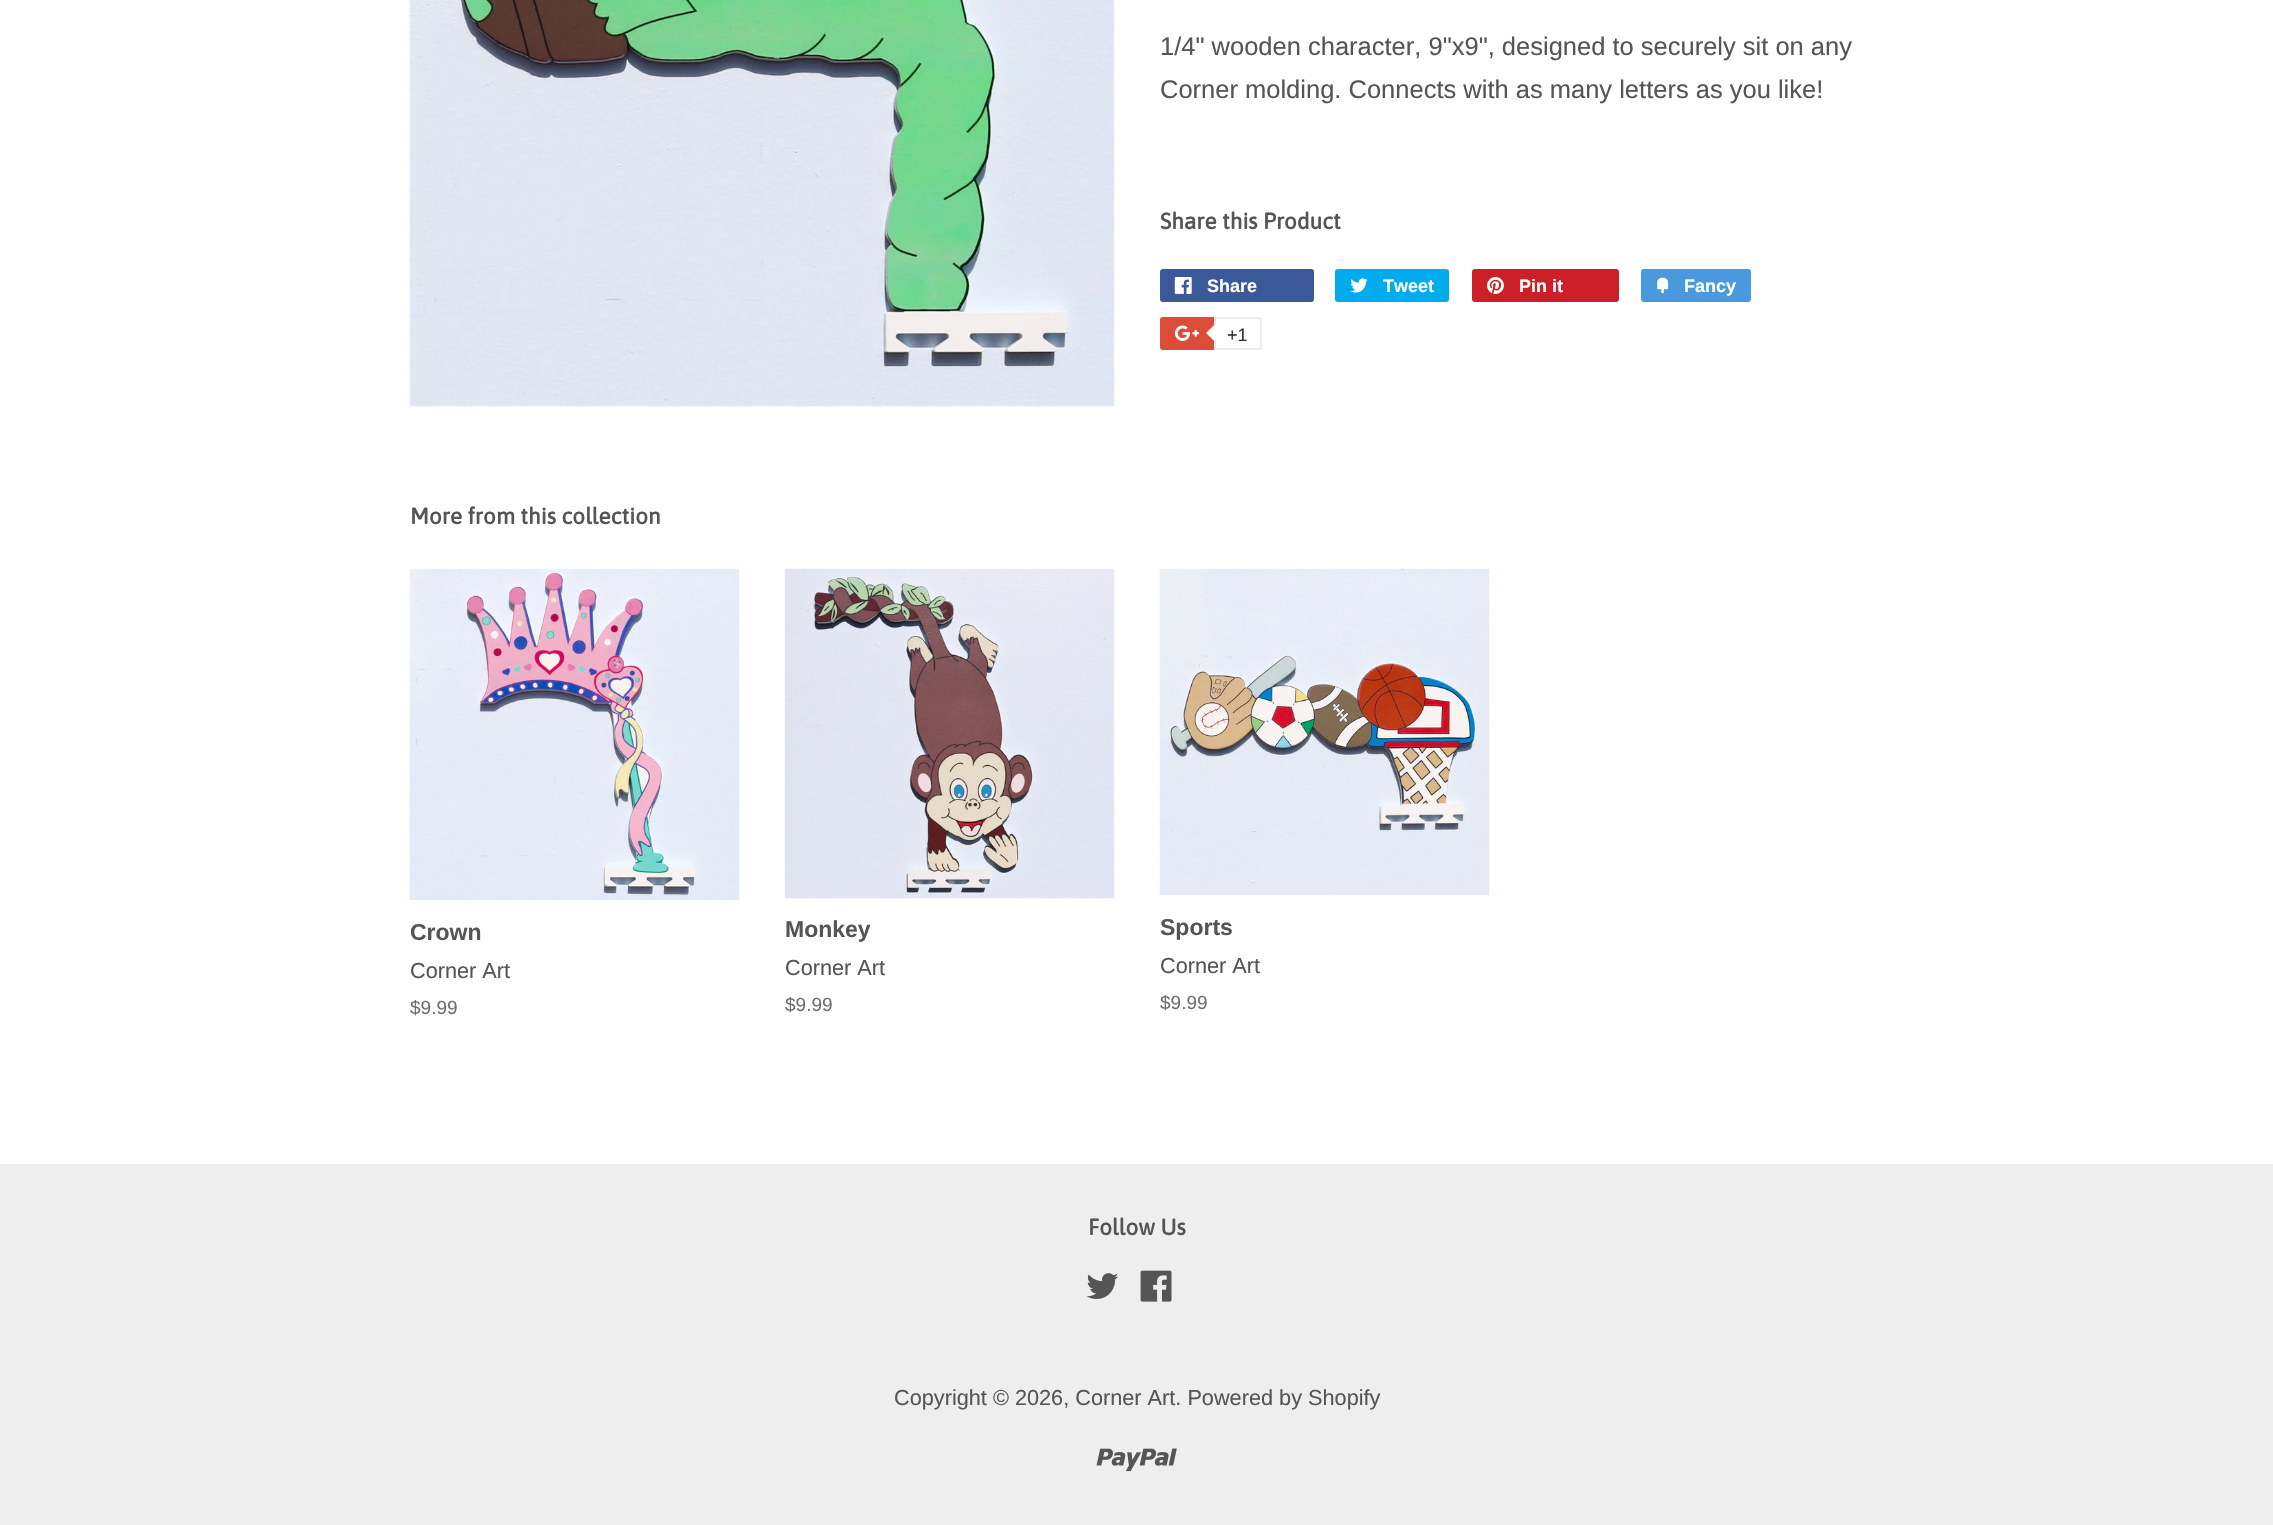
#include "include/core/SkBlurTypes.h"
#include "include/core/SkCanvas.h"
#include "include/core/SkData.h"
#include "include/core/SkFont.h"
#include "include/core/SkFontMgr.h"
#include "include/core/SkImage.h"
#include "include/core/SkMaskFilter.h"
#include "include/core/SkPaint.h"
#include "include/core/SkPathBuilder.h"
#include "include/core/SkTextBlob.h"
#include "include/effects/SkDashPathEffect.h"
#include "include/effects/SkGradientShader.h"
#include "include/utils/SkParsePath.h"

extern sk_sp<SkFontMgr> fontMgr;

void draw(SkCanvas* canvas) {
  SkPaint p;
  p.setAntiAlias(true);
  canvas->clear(SK_ColorWHITE);
  canvas->drawImageRect(SkImages::DeferredFromEncodedData(SkData::MakeFromFileName("images/1.png")), SkRect::MakeLTRB(409, 0, 1115, 407), SkSamplingOptions());
  p.setColor(SkColorSetRGB(59, 89, 152));
  canvas->drawRoundRect(SkRect::MakeLTRB(1160, 269, 1314, 302), 3, 3, p);
  canvas->drawImageRect(SkImages::DeferredFromEncodedData(SkData::MakeFromFileName("images/2.png")), SkRect::MakeLTRB(1174, 277, 1192, 294), SkSamplingOptions());
  p.setColor(SkColorSetRGB(0, 172, 237));
  canvas->drawRoundRect(SkRect::MakeLTRB(1335, 269, 1449, 302), 3, 3, p);
  canvas->drawImageRect(SkImages::DeferredFromEncodedData(SkData::MakeFromFileName("images/3.png")), SkRect::MakeLTRB(1350, 278, 1368, 293), SkSamplingOptions());
  p.setColor(SkColorSetRGB(203, 32, 39));
  canvas->drawRoundRect(SkRect::MakeLTRB(1472, 269, 1619, 302), 3, 3, p);
  canvas->drawImageRect(SkImages::DeferredFromEncodedData(SkData::MakeFromFileName("images/4.png")), SkRect::MakeLTRB(1487, 277, 1504, 294), SkSamplingOptions());
  p.setColor(SkColorSetRGB(73, 153, 220));
  canvas->drawRoundRect(SkRect::MakeLTRB(1641, 269, 1751, 302), 3, 3, p);
  canvas->drawImageRect(SkImages::DeferredFromEncodedData(SkData::MakeFromFileName("images/5.png")), SkRect::MakeLTRB(1657, 277, 1669, 294), SkSamplingOptions());
  p.setColor(SkColorSetRGB(221, 75, 57));
  canvas->drawRoundRect(SkRect::MakeLTRB(1160, 317, 1259, 350), 3, 3, p);
  canvas->drawImageRect(SkImages::DeferredFromEncodedData(SkData::MakeFromFileName("images/6.png")), SkRect::MakeLTRB(1174, 325, 1199, 341), SkSamplingOptions());
  p.setColor(SK_ColorWHITE);
  canvas->drawPath(SkPathBuilder().moveTo(1215, 318).lineTo(1259, 318).cubicTo(1260, 318, 1261, 319, 1261, 320).lineTo(1261, 347).cubicTo(1261, 348, 1260, 349, 1259, 349).lineTo(1215, 349).close().detach(), p);
  p.setStyle(SkPaint::kStroke_Style);
  p.setStrokeWidth(2);
  p.setColor(SkColorSetRGB(236, 236, 236));
  canvas->drawPath(SkPathBuilder().moveTo(1215, 318).lineTo(1259, 318).cubicTo(1260, 318, 1261, 319, 1261, 320).lineTo(1261, 347).cubicTo(1261, 348, 1260, 349, 1259, 349).lineTo(1215, 349).close().detach(), p);
  p.setStyle(SkPaint::kFill_Style);
  canvas->drawPath(SkPathBuilder().moveTo(1215, 324).lineTo(1215, 342).lineTo(1206, 333).close().detach(), p);
  p.setColor(SK_ColorWHITE);
  canvas->drawPath(SkPathBuilder().moveTo(1216.5f, 324).lineTo(1216.5f, 342).lineTo(1207.5f, 333).close().detach(), p);
  canvas->drawImageRect(SkImages::DeferredFromEncodedData(SkData::MakeFromFileName("images/7.png")), SkRect::MakeLTRB(409, 568, 740, 900), SkSamplingOptions());
  canvas->drawImageRect(SkImages::DeferredFromEncodedData(SkData::MakeFromFileName("images/8.png")), SkRect::MakeLTRB(784, 568, 1115, 899), SkSamplingOptions());
  canvas->drawImageRect(SkImages::DeferredFromEncodedData(SkData::MakeFromFileName("images/9.png")), SkRect::MakeLTRB(1159, 568, 1490, 896), SkSamplingOptions());
  p.setColor(SkColorSetRGB(238, 238, 238));
  canvas->drawRect(SkRect::MakeLTRB(0, 1164, 2273, 1525), p);
  canvas->drawImageRect(SkImages::DeferredFromEncodedData(SkData::MakeFromFileName("images/10.png")), SkRect::MakeLTRB(1086, 1273, 1118, 1299), SkSamplingOptions());
  canvas->drawImageRect(SkImages::DeferredFromEncodedData(SkData::MakeFromFileName("images/11.png")), SkRect::MakeLTRB(1140, 1270, 1172, 1302), SkSamplingOptions());
  canvas->drawImageRect(SkImages::DeferredFromEncodedData(SkData::MakeFromFileName("images/12.png")), SkRect::MakeLTRB(1096, 1448, 1177, 1472), SkSamplingOptions());
  SkFont font1(fontMgr->matchFamilyStyle("Liberation Sans", SkFontStyle::Normal()), 25.5f);
  font1.setSubpixel(true);
  p.setColor(SkColorSetRGB(85, 85, 85));
  canvas->drawString("1/4\" wooden character, 9\"x9\", designed to securely sit on any", 1160, 55, font1, p);
  canvas->drawString("Corner molding. Connects with as many letters as you like!", 1160, 98, font1, p);
  SkFont font2(fontMgr->matchFamilyStyle("Asap", SkFontStyle::Bold()), 22.5f);
  font2.setSubpixel(true);
  canvas->drawString("Share this Product", 1160, 229, font2, p);
  SkFont font3(fontMgr->matchFamilyStyle("Liberation Sans", SkFontStyle::Bold()), 18);
  font3.setSubpixel(true);
  p.setColor(SK_ColorWHITE);
  canvas->drawString("Share", 1207, 292, font3, p);
  canvas->drawString("Tweet", 1383, 292, font3, p);
  canvas->drawString("Pin it", 1519, 292, font3, p);
  canvas->drawString("Fancy", 1684, 292, font3, p);
  SkFont font4(fontMgr->matchFamilyStyle("Liberation Sans", SkFontStyle::Normal()), 18);
  font4.setSubpixel(true);
  p.setColor(SkColorSetRGB(51, 51, 51));
  canvas->drawString("+1", 1227, 341, font4, p);
  p.setColor(SkColorSetRGB(85, 85, 85));
  canvas->drawString("More from this collection", 410, 524, font2, p);
  SkFont font5(fontMgr->matchFamilyStyle("Liberation Sans", SkFontStyle::Bold()), 23);
  font5.setSubpixel(true);
  canvas->drawString("Crown", 410, 940, font5, p);
  SkFont font6(fontMgr->matchFamilyStyle("Liberation Sans", SkFontStyle::Normal()), 21.7f);
  font6.setSubpixel(true);
  canvas->drawString("Corner Art", 410, 978, font6, p);
  SkFont font7(fontMgr->matchFamilyStyle("Liberation Sans", SkFontStyle::Normal()), 19);
  font7.setSubpixel(true);
  p.setColor(SkColorSetRGB(110, 110, 110));
  canvas->drawString("$9.99", 410, 1014, font7, p);
  p.setColor(SkColorSetRGB(85, 85, 85));
  canvas->drawString("Monkey", 785, 937, font5, p);
  canvas->drawString("Corner Art", 785, 975, font6, p);
  p.setColor(SkColorSetRGB(110, 110, 110));
  canvas->drawString("$9.99", 785, 1011, font7, p);
  p.setColor(SkColorSetRGB(85, 85, 85));
  canvas->drawString("Sports", 1160, 935, font5, p);
  canvas->drawString("Corner Art", 1160, 973, font6, p);
  p.setColor(SkColorSetRGB(110, 110, 110));
  canvas->drawString("$9.99", 1160, 1009, font7, p);
  p.setColor(SkColorSetRGB(85, 85, 85));
  canvas->drawString("Follow Us", 1088, 1235, font2, p);
  canvas->drawString("Copyright © 2026, Corner Art. Powered by Shopify", 894, 1405, font6, p);
}
